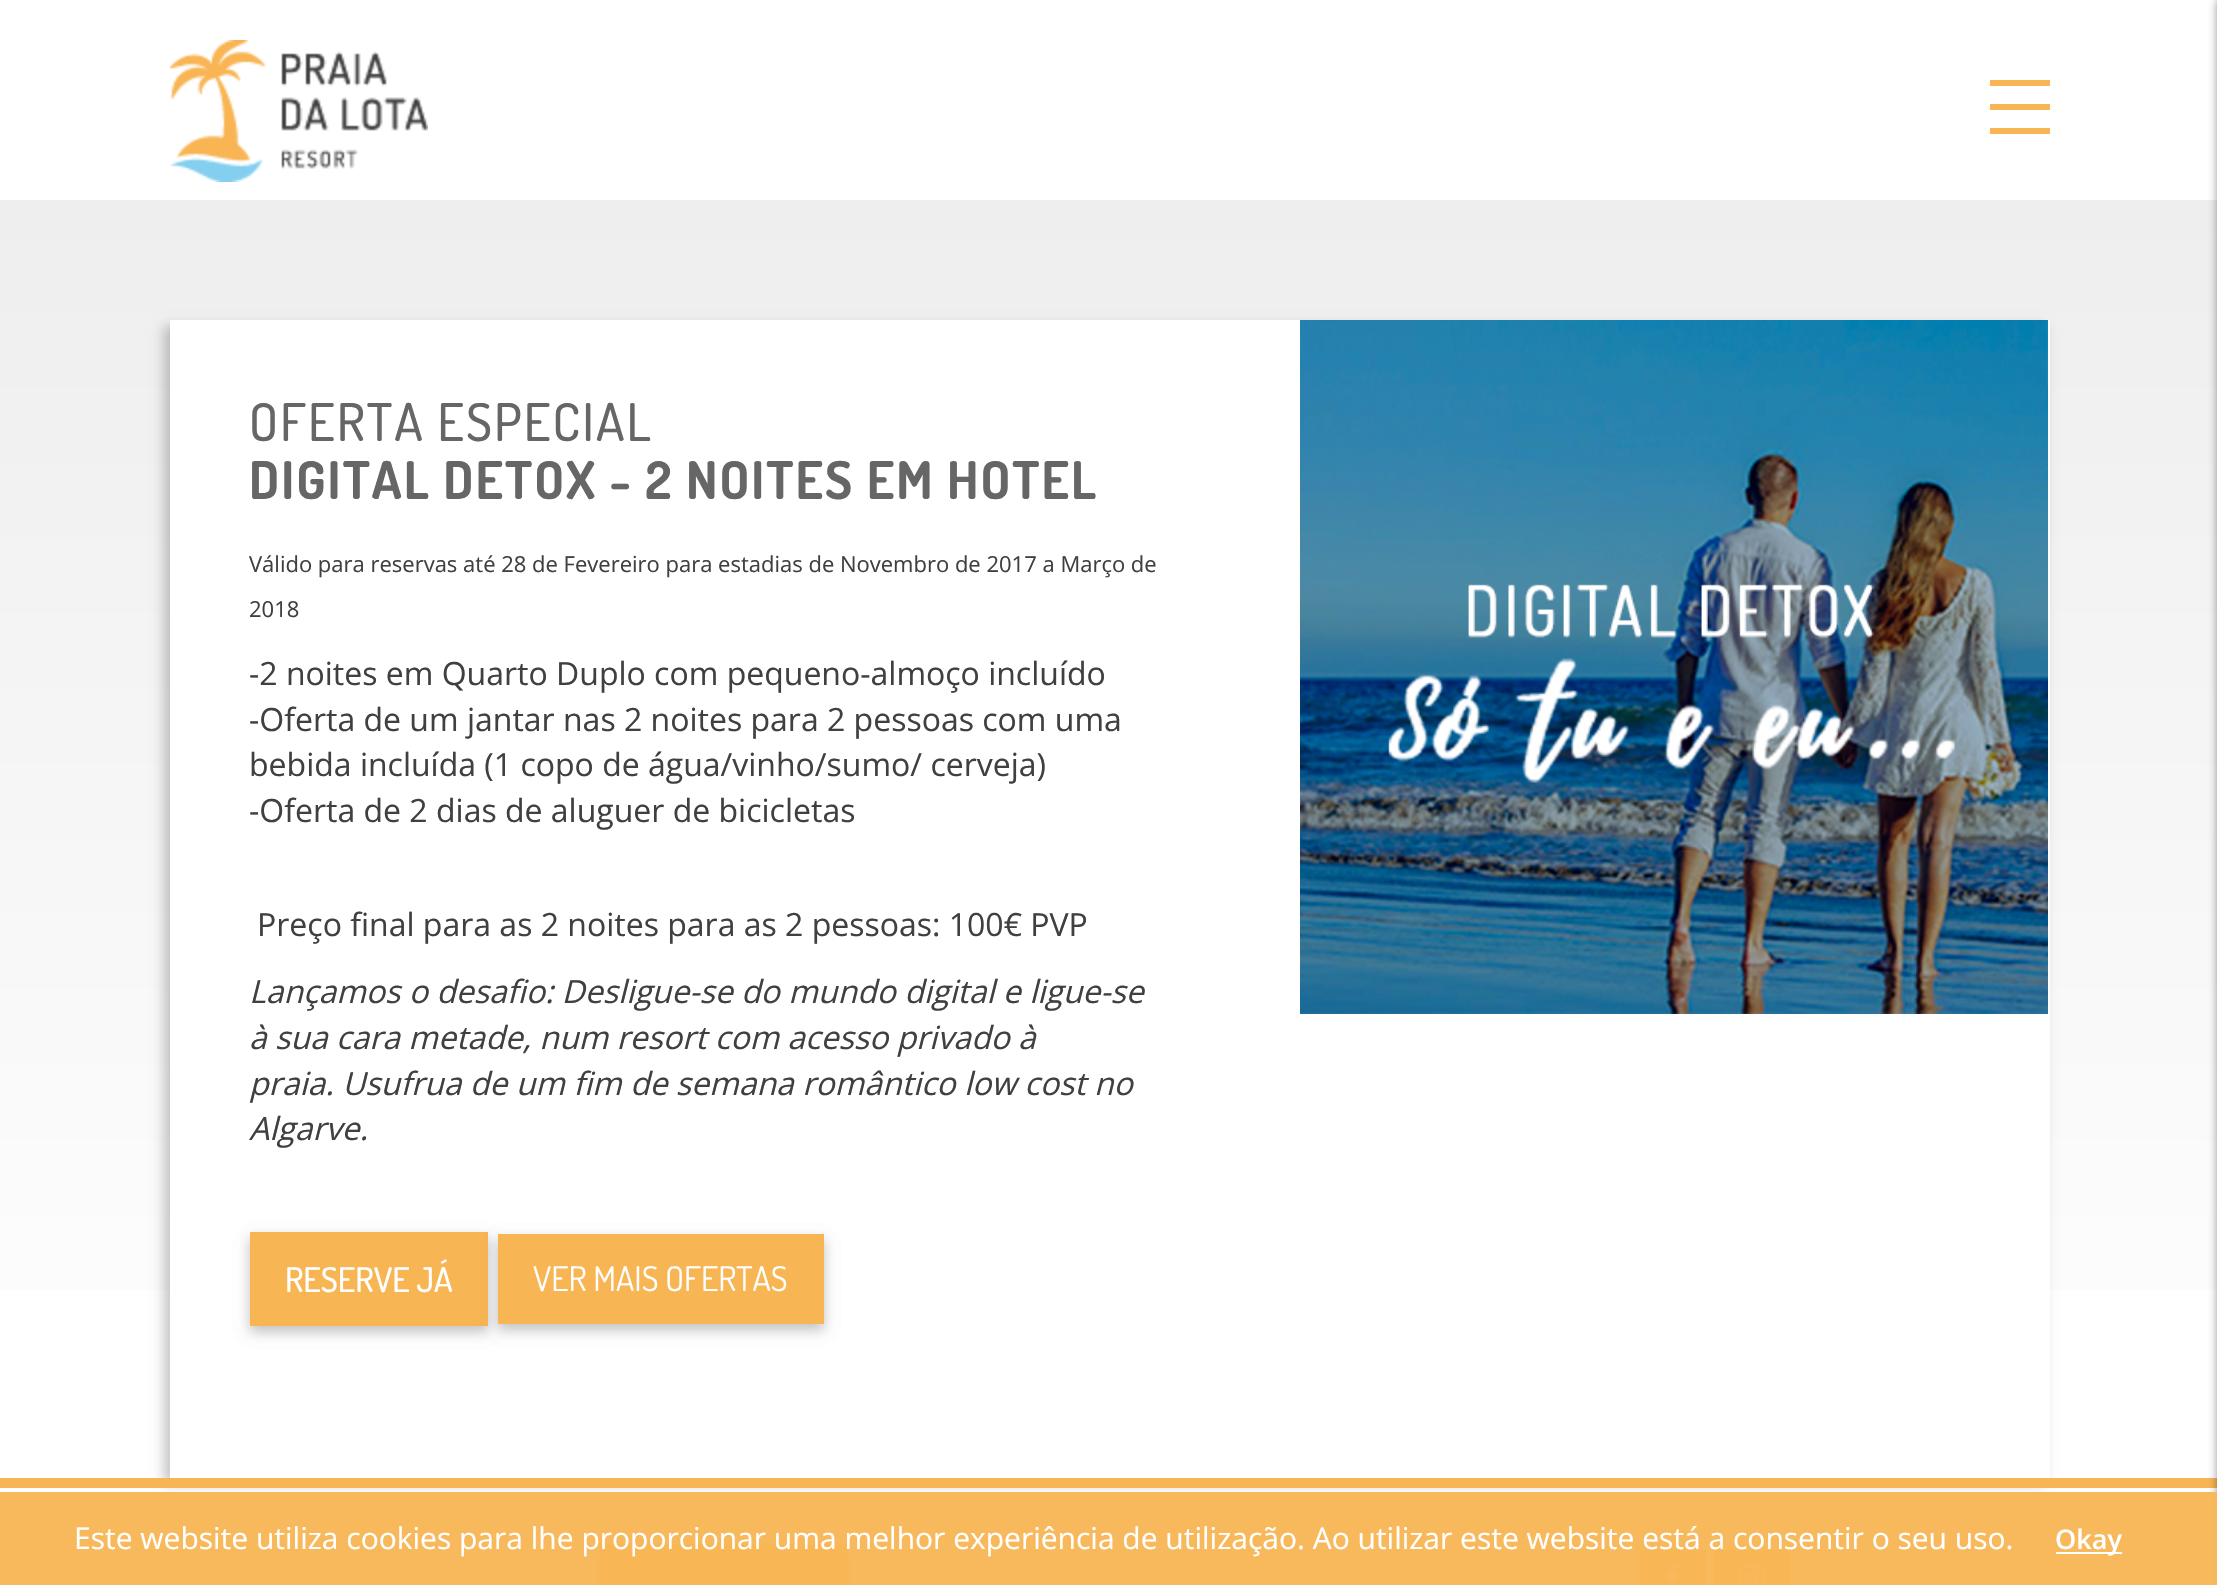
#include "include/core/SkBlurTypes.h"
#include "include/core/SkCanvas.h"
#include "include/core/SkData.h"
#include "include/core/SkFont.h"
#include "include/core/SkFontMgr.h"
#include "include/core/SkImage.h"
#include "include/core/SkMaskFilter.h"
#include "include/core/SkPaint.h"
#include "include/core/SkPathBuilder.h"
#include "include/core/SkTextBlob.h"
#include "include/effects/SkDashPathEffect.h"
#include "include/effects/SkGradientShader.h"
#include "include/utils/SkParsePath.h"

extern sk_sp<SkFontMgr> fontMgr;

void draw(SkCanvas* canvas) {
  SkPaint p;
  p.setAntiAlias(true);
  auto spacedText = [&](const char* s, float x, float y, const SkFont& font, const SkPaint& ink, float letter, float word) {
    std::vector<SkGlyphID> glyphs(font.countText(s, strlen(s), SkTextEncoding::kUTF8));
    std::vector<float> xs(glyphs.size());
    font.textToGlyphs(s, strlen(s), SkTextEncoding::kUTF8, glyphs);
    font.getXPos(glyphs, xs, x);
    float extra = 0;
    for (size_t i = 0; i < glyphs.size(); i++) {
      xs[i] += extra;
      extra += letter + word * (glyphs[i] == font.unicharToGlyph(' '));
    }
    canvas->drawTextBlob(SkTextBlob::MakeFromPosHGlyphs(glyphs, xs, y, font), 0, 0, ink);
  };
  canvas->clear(SK_ColorWHITE);
  canvas->drawImageRect(SkImages::DeferredFromEncodedData(SkData::MakeFromFileName("images/1.png")), SkRect::MakeLTRB(170, 40, 428, 182), SkSamplingOptions());
  p.setColor(SkColorSetRGB(248, 181, 83));
  canvas->drawRect(SkRect::MakeLTRB(1990, 104, 2050, 110), p);
  canvas->drawRect(SkRect::MakeLTRB(1990, 80, 2050, 86), p);
  canvas->drawRect(SkRect::MakeLTRB(1990, 128, 2050, 134), p);
  {
    const SkColor colors[] = {SkColorSetRGB(238, 238, 238), SK_ColorWHITE};
    const float stops[] = {0, 1};
    const SkPoint ends[] = {{1109, 200}, {1109, 1478}};
    p.setShader(SkGradientShader::MakeLinear(ends, colors, stops, 2, SkTileMode::kClamp));
    p.setAlpha(255);
  }
  canvas->drawRect(SkRect::MakeLTRB(0, 200, 2217, 1290), p);
  p.setShader(nullptr);
  p.setColor(SkColorSetARGB(59, 0, 0, 0));
  p.setMaskFilter(SkMaskFilter::MakeBlur(kNormal_SkBlurStyle, 6));
  canvas->drawRect(SkRect::MakeLTRB(164, 326, 2044, 1484), p);
  p.setMaskFilter(nullptr);
  p.setColor(SkColorSetRGB(248, 181, 83));
  canvas->drawRect(SkRect::MakeLTRB(0, 1478, 2217, 1488), p);
  p.setColor(SkColorSetARGB(128, 0, 0, 0));
  p.setMaskFilter(SkMaskFilter::MakeBlur(kNormal_SkBlurStyle, 5));
  canvas->drawRect(SkRect::MakeLTRB(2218, 0, 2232, 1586), p);
  p.setMaskFilter(nullptr);
  p.setColor(SK_ColorWHITE);
  canvas->drawRect(SkRect::MakeLTRB(170, 320, 2050, 1478), p);
  p.setColor(SkColorSetARGB(38, 0, 0, 0));
  p.setMaskFilter(SkMaskFilter::MakeBlur(kNormal_SkBlurStyle, 6));
  canvas->drawRect(SkRect::MakeLTRB(250, 1238, 488, 1332), p);
  p.setMaskFilter(nullptr);
  p.setColor(SkColorSetARGB(26, 0, 0, 0));
  p.setMaskFilter(SkMaskFilter::MakeBlur(kNormal_SkBlurStyle, 6));
  canvas->drawRect(SkRect::MakeLTRB(250, 1238, 488, 1332), p);
  p.setMaskFilter(nullptr);
  p.setColor(SkColorSetRGB(248, 181, 83));
  canvas->drawRect(SkRect::MakeLTRB(250, 1232, 488, 1326), p);
  p.setColor(SkColorSetARGB(38, 0, 0, 0));
  p.setMaskFilter(SkMaskFilter::MakeBlur(kNormal_SkBlurStyle, 6));
  canvas->drawRect(SkRect::MakeLTRB(498, 1240, 824, 1330), p);
  p.setMaskFilter(nullptr);
  p.setColor(SkColorSetARGB(26, 0, 0, 0));
  p.setMaskFilter(SkMaskFilter::MakeBlur(kNormal_SkBlurStyle, 6));
  canvas->drawRect(SkRect::MakeLTRB(498, 1240, 824, 1330), p);
  p.setMaskFilter(nullptr);
  p.setColor(SkColorSetRGB(248, 181, 83));
  canvas->drawRect(SkRect::MakeLTRB(498, 1234, 824, 1324), p);
  canvas->drawImageRect(SkImages::DeferredFromEncodedData(SkData::MakeFromFileName("images/2.png")), SkRect::MakeLTRB(1300, 320, 2048, 1014), SkSamplingOptions());
  p.setColor(SkColorSetARGB(38, 0, 0, 0));
  p.setMaskFilter(SkMaskFilter::MakeBlur(kNormal_SkBlurStyle, 6));
  canvas->drawRect(SkRect::MakeLTRB(600, 1550, 848, 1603), p);
  p.setMaskFilter(nullptr);
  p.setColor(SkColorSetARGB(26, 0, 0, 0));
  p.setMaskFilter(SkMaskFilter::MakeBlur(kNormal_SkBlurStyle, 6));
  canvas->drawRect(SkRect::MakeLTRB(600, 1550, 848, 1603), p);
  p.setMaskFilter(nullptr);
  p.setColor(SkColorSetRGB(248, 181, 83));
  canvas->drawRect(SkRect::MakeLTRB(600, 1544, 848, 1585), p);
  canvas->drawRect(SkRect::MakeLTRB(1640, 1550, 1706, 1585), p);
  canvas->drawImageRect(SkImages::DeferredFromEncodedData(SkData::MakeFromFileName("images/3.png")), SkRect::MakeLTRB(1665, 1562, 1682, 1585), SkSamplingOptions());
  canvas->drawRect(SkRect::MakeLTRB(1714, 1550, 1790, 1585), p);
  canvas->drawImageRect(SkImages::DeferredFromEncodedData(SkData::MakeFromFileName("images/4.png")), SkRect::MakeLTRB(1738, 1564, 1766, 1585), SkSamplingOptions());
  p.setColor(SkColorSetARGB(242, 248, 181, 83));
  canvas->drawRect(SkRect::MakeLTRB(0, 1492, 2217, 1585), p);
  p.setColor(SK_ColorWHITE);
  canvas->drawRect(SkRect::MakeLTRB(2056, 1552, 2122, 1554), p);
  SkFont font1(fontMgr->matchFamilyStyle("Dosis", SkFontStyle(500, SkFontStyle::kNormal_Width, SkFontStyle::kUpright_Slant)), 52);
  font1.setSubpixel(true);
  p.setColor(SkColorSetRGB(102, 102, 102));
  spacedText("OFERTA ESPECIAL", 249, 441, font1, p, 2, 0);
  SkFont font2(fontMgr->matchFamilyStyle("Dosis", SkFontStyle::Bold()), 52);
  font2.setSubpixel(true);
  spacedText("DIGITAL DETOX - 2 NOITES EM HOTEL", 249, 499, font2, p, 2, 0);
  SkFont font3(fontMgr->matchFamilyStyle("Open Sans", SkFontStyle::Normal()), 22);
  font3.setSubpixel(true);
  p.setColor(SkColorSetRGB(64, 64, 65));
  canvas->drawString("Válido para reservas até 28 de Fevereiro para estadias de Novembro de 2017 a Março de", 249, 572, font3, p);
  canvas->drawString("2018", 249, 617, font3, p);
  SkFont font4(fontMgr->matchFamilyStyle("Open Sans", SkFontStyle::Normal()), 32);
  font4.setSubpixel(true);
  canvas->drawString("-2 noites em Quarto Duplo com pequeno-almoço incluído", 249, 685, font4, p);
  canvas->drawString("-Oferta de um jantar nas 2 noites para 2 pessoas com uma", 249, 731, font4, p);
  canvas->drawString("bebida incluída (1 copo de água/vinho/sumo/ cerveja)", 249, 776, font4, p);
  canvas->drawString("-Oferta de 2 dias de aluguer de bicicletas", 249, 822, font4, p);
  canvas->drawString("Preço final para as 2 noites para as 2 pessoas: 100€ PVP", 257, 936, font4, p);
  SkFont font5(fontMgr->matchFamilyStyle("Open Sans", SkFontStyle::Italic()), 32);
  font5.setSubpixel(true);
  canvas->drawString("Lançamos o desafio: Desligue-se do mundo digital e ligue-se", 249, 1003, font5, p);
  canvas->drawString("à sua cara metade, num resort com acesso privado à", 249, 1049, font5, p);
  canvas->drawString("praia. Usufrua de um fim de semana romântico low cost no", 249, 1095, font5, p);
  canvas->drawString("Algarve.", 249, 1140, font5, p);
  SkFont font6(fontMgr->matchFamilyStyle("Dosis", SkFontStyle(500, SkFontStyle::kNormal_Width, SkFontStyle::kUpright_Slant)), 34);
  font6.setSubpixel(true);
  p.setColor(SK_ColorWHITE);
  canvas->drawString("RESERVE JÁ", 285, 1292, font6, p);
  SkFont font7(fontMgr->matchFamilyStyle("Dosis", SkFontStyle::Normal()), 34);
  font7.setSubpixel(true);
  canvas->drawString("VER MAIS OFERTAS", 533, 1291, font7, p);
  SkFont font8(fontMgr->matchFamilyStyle("Open Sans", SkFontStyle::Normal()), 30);
  font8.setSubpixel(true);
  canvas->drawString("Este website utiliza cookies para lhe proporcionar uma melhor experiência de utilização. Ao utilizar este website está a consentir o seu uso.", 74, 1549, font8, p);
  SkFont font9(fontMgr->matchFamilyStyle("Open Sans", SkFontStyle(600, SkFontStyle::kNormal_Width, SkFontStyle::kUpright_Slant)), 27);
  font9.setSubpixel(true);
  canvas->drawString("Okay", 2055, 1549, font9, p);
}
